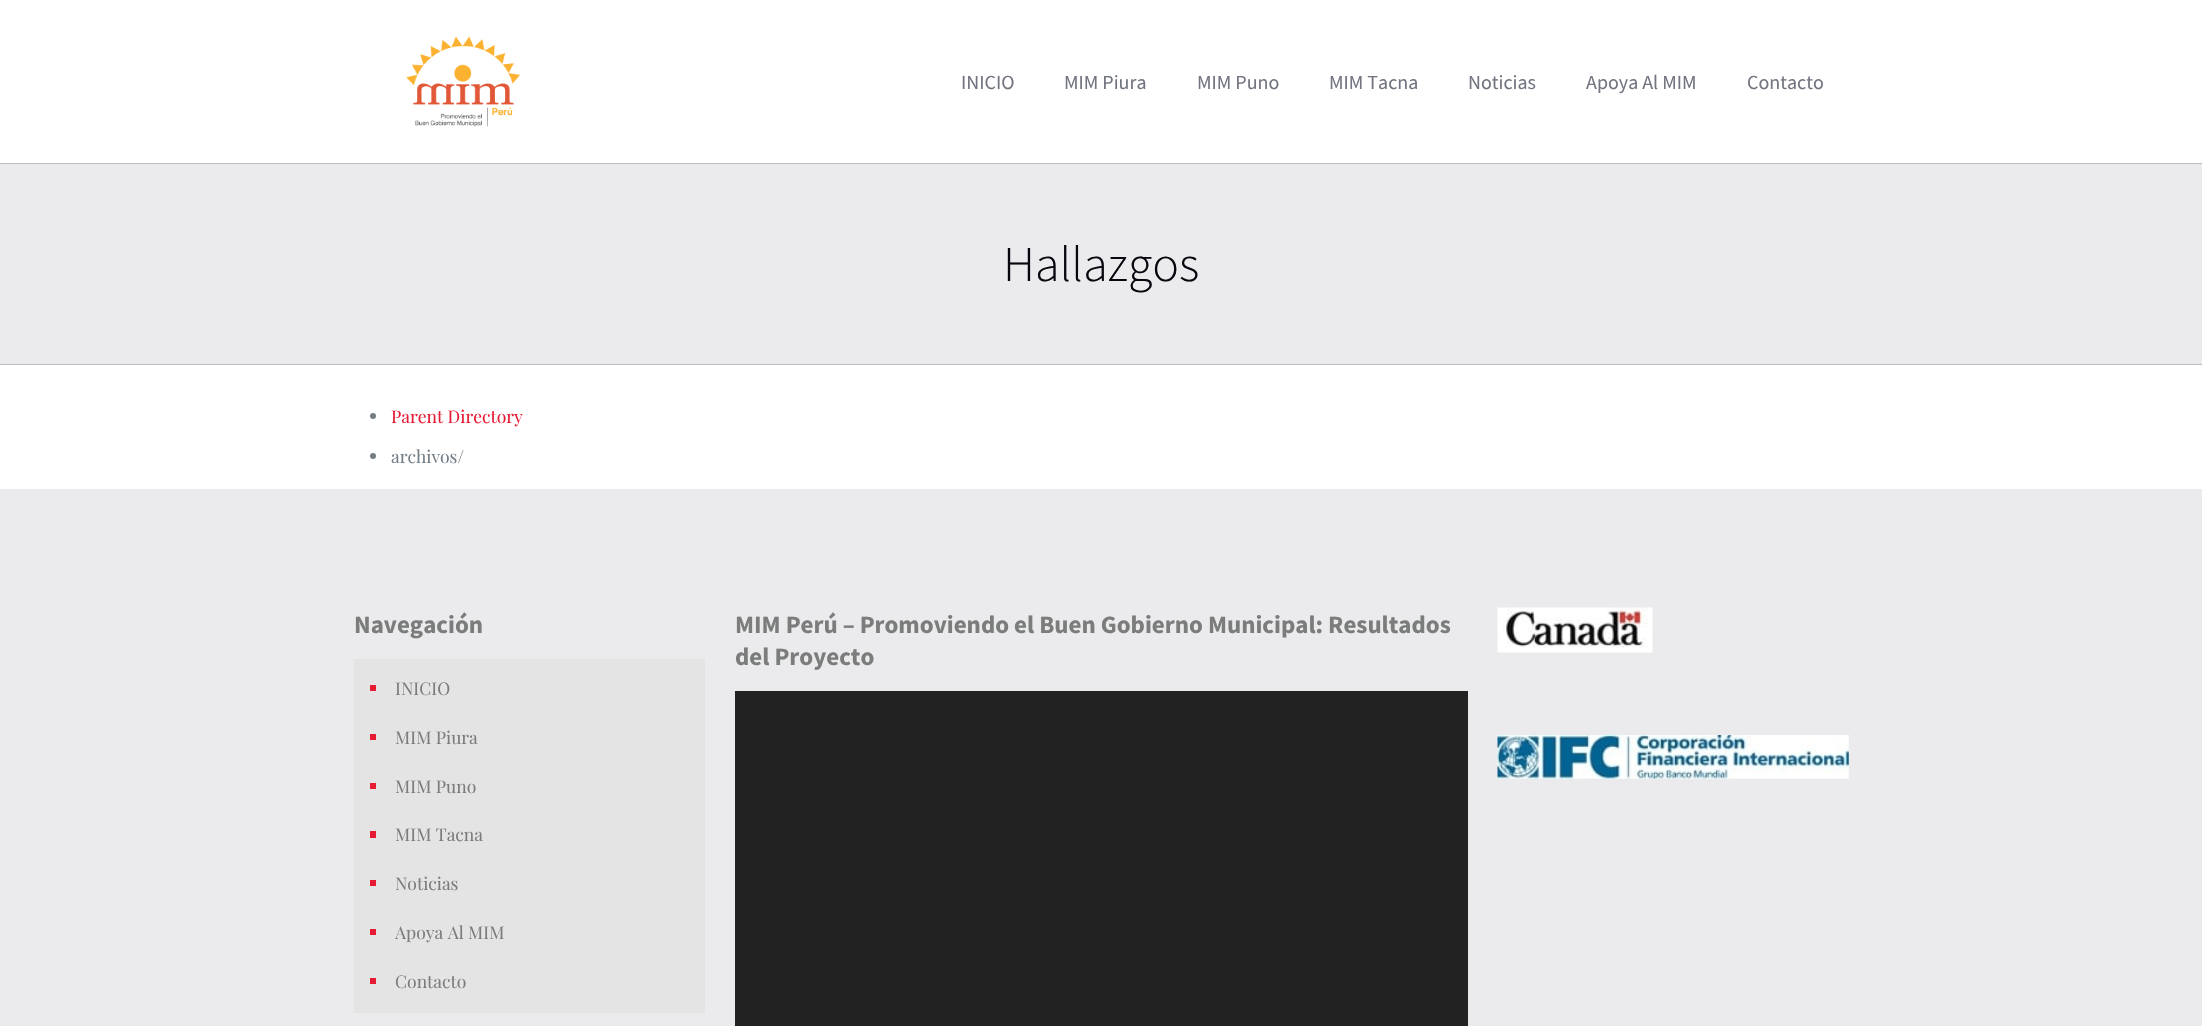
#include "include/core/SkBlurTypes.h"
#include "include/core/SkCanvas.h"
#include "include/core/SkData.h"
#include "include/core/SkFont.h"
#include "include/core/SkFontMgr.h"
#include "include/core/SkImage.h"
#include "include/core/SkMaskFilter.h"
#include "include/core/SkPaint.h"
#include "include/core/SkPathBuilder.h"
#include "include/core/SkTextBlob.h"
#include "include/effects/SkDashPathEffect.h"
#include "include/effects/SkGradientShader.h"
#include "include/utils/SkParsePath.h"

extern sk_sp<SkFontMgr> fontMgr;

void draw(SkCanvas* canvas) {
  SkPaint p;
  p.setAntiAlias(true);
  canvas->clear(SK_ColorWHITE);
  p.setColor(SkColorSetRGB(187, 188, 191));
  canvas->drawRect(SkRect::MakeLTRB(0, 163, 2202, 164), p);
  canvas->drawImageRect(SkImages::DeferredFromEncodedData(SkData::MakeFromFileName("images/1.png")), SkRect::MakeLTRB(406, 36, 520, 127), SkSamplingOptions());
  p.setColor(SkColorSetRGB(235, 235, 237));
  canvas->drawRect(SkRect::MakeLTRB(0, 164, 2202, 364), p);
  p.setColor(SkColorSetRGB(187, 188, 191));
  canvas->drawRect(SkRect::MakeLTRB(0, 364, 2202, 365), p);
  p.setColor(SkColorSetRGB(115, 126, 134));
  canvas->drawCircle(373, 416, 3, p);
  canvas->drawCircle(373, 456, 3, p);
  p.setColor(SkColorSetRGB(235, 235, 237));
  canvas->drawRect(SkRect::MakeLTRB(0, 489, 2202, 1026), p);
  p.setColor(SkColorSetRGB(228, 228, 229));
  canvas->drawRect(SkRect::MakeLTRB(354, 659, 705, 1013), p);
  p.setColor(SkColorSetRGB(231, 28, 52));
  canvas->drawRect(SkRect::MakeLTRB(370, 685, 376, 691), p);
  canvas->drawRect(SkRect::MakeLTRB(370, 734, 376, 740), p);
  canvas->drawRect(SkRect::MakeLTRB(370, 783, 376, 789), p);
  canvas->drawRect(SkRect::MakeLTRB(370, 831, 376, 838), p);
  canvas->drawRect(SkRect::MakeLTRB(370, 880, 376, 886), p);
  canvas->drawRect(SkRect::MakeLTRB(370, 929, 376, 935), p);
  canvas->drawRect(SkRect::MakeLTRB(370, 978, 376, 984), p);
  p.setColor(SkColorSetRGB(34, 34, 34));
  canvas->drawRect(SkRect::MakeLTRB(735, 691, 1468, 1026), p);
  canvas->drawImageRect(SkImages::DeferredFromEncodedData(SkData::MakeFromFileName("images/2.png")), SkRect::MakeLTRB(1497, 607, 1653, 653), SkSamplingOptions());
  canvas->drawImageRect(SkImages::DeferredFromEncodedData(SkData::MakeFromFileName("images/3.png")), SkRect::MakeLTRB(1497, 735, 1849, 779), SkSamplingOptions());
  SkFont font1(fontMgr->matchFamilyStyle("Source Sans Pro", SkFontStyle::Normal()), 20);
  font1.setSubpixel(true);
  p.setColor(SkColorSetRGB(114, 117, 127));
  canvas->drawString("INICIO", 961, 89, font1, p);
  canvas->drawString("MIM Piura", 1064, 89, font1, p);
  canvas->drawString("MIM Puno", 1197, 89, font1, p);
  canvas->drawString("MIM Tacna", 1329, 89, font1, p);
  canvas->drawString("Noticias", 1468, 89, font1, p);
  canvas->drawString("Apoya Al MIM", 1586, 89, font1, p);
  canvas->drawString("Contacto", 1747, 89, font1, p);
  SkFont font2(fontMgr->matchFamilyStyle("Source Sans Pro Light", SkFontStyle(300, SkFontStyle::kNormal_Width, SkFontStyle::kUpright_Slant)), 50);
  font2.setSubpixel(true);
  p.setColor(SkColorSetRGB(7, 8, 15));
  canvas->drawString("Hallazgos", 1003, 281, font2, p);
  SkFont font3(fontMgr->matchFamilyStyle("Playfair Display", SkFontStyle::Normal()), 17.5f);
  font3.setSubpixel(true);
  p.setColor(SkColorSetRGB(231, 28, 52));
  canvas->drawString("Parent Directory", 391, 423, font3, p);
  p.setColor(SkColorSetRGB(115, 126, 134));
  canvas->drawString("archivos/", 391, 463, font3, p);
  SkFont font4(fontMgr->matchFamilyStyle("Source Sans Pro", SkFontStyle::Bold()), 25);
  font4.setSubpixel(true);
  p.setColor(SkColorSetRGB(123, 124, 124));
  canvas->drawString("Navegación", 354, 633, font4, p);
  canvas->drawString("INICIO", 395, 695, font3, p);
  canvas->drawString("MIM Piura", 395, 744, font3, p);
  canvas->drawString("MIM Puno", 395, 793, font3, p);
  canvas->drawString("MIM Tacna", 395, 841, font3, p);
  canvas->drawString("Noticias", 395, 890, font3, p);
  canvas->drawString("Apoya Al MIM", 395, 939, font3, p);
  canvas->drawString("Contacto", 395, 988, font3, p);
  canvas->drawString("MIM Perú – Promoviendo el Buen Gobierno Municipal: Resultados", 735, 633, font4, p);
  canvas->drawString("del Proyecto", 735, 665, font4, p);
}
